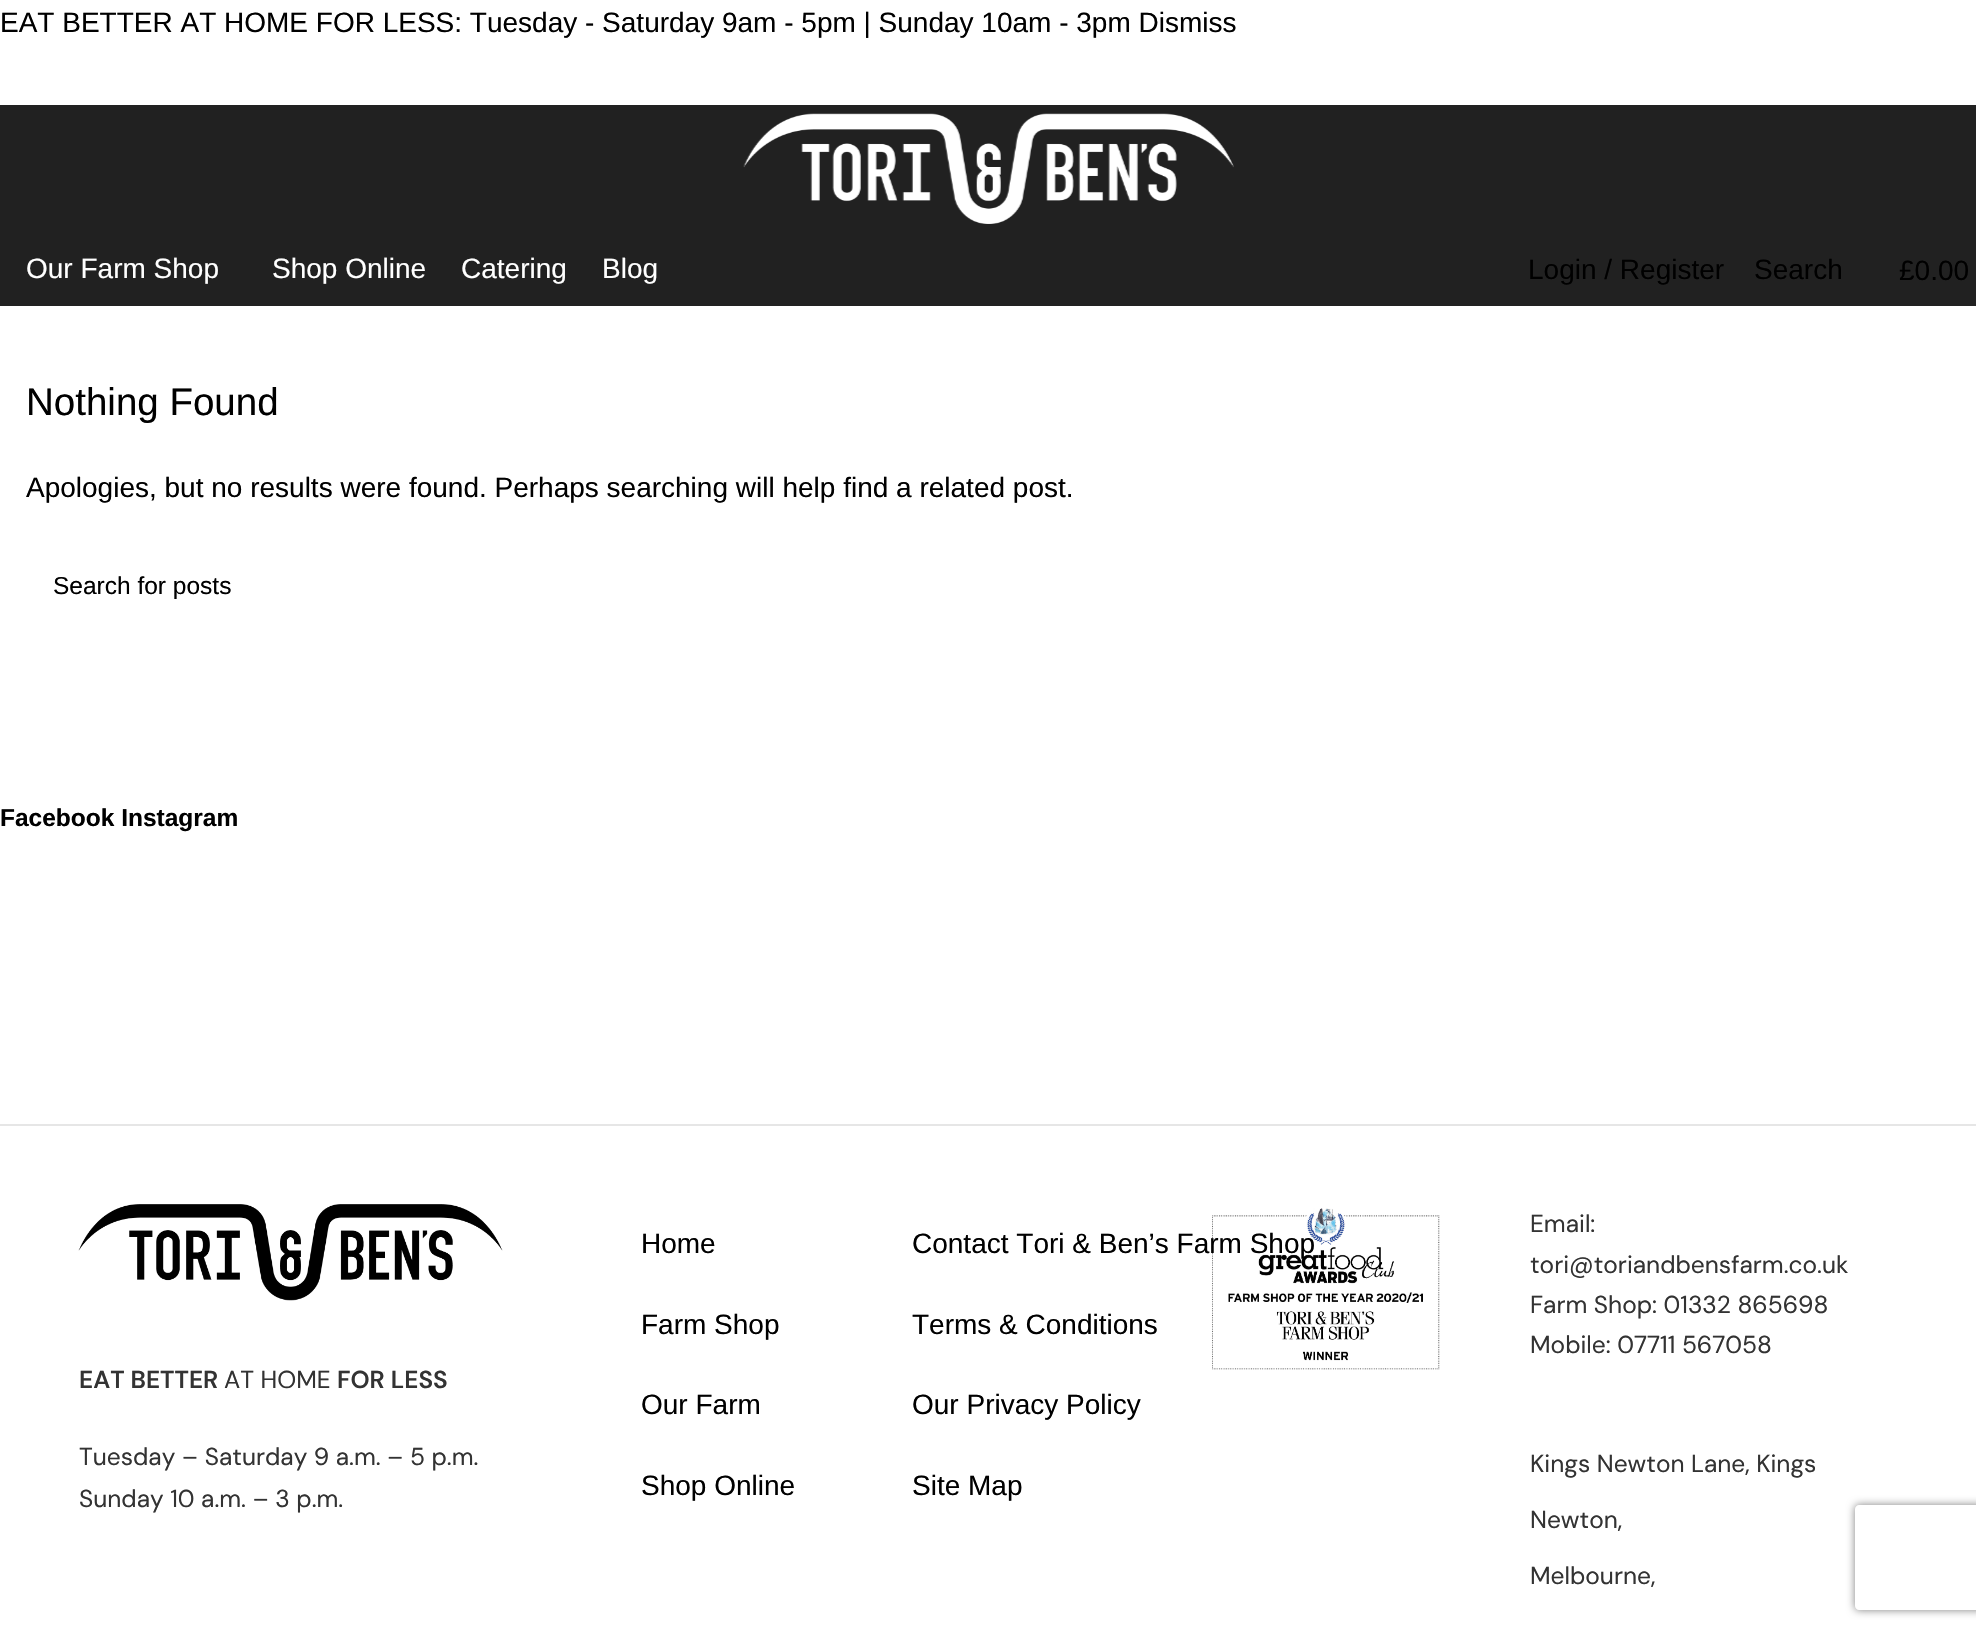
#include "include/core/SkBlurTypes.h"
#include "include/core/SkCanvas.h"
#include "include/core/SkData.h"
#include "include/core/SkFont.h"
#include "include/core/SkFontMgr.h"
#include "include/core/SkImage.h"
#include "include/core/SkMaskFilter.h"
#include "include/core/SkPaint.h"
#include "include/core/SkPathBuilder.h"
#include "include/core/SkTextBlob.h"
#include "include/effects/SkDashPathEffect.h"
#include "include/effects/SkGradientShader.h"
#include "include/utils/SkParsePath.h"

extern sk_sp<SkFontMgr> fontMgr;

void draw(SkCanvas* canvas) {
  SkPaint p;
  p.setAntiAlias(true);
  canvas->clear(SK_ColorWHITE);
  p.setColor(SkColorSetRGB(33, 33, 33));
  canvas->drawRect(SkRect::MakeLTRB(0, 105, 1976, 306), p);
  canvas->drawImageRect(SkImages::DeferredFromEncodedData(SkData::MakeFromFileName("images/1.png")), SkRect::MakeLTRB(743, 113, 1234, 224), SkSamplingOptions());
  p.setColor(SkColorSetRGB(230, 230, 230));
  canvas->drawRect(SkRect::MakeLTRB(0, 1124, 1976, 1126), p);
  canvas->drawImageRect(SkImages::DeferredFromEncodedData(SkData::MakeFromFileName("images/2.png")), SkRect::MakeLTRB(78, 1204, 503, 1301), SkSamplingOptions());
  canvas->drawImageRect(SkImages::DeferredFromEncodedData(SkData::MakeFromFileName("images/3.png")), SkRect::MakeLTRB(1212, 1208, 1440, 1370), SkSamplingOptions());
  canvas->save();
  canvas->clipPath(SkPathBuilder(SkPathFillType::kEvenOdd).moveTo(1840, 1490).lineTo(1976, 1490).lineTo(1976, 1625).lineTo(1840, 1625).close().moveTo(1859, 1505).lineTo(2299, 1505).cubicTo(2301, 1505, 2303, 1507, 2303, 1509).lineTo(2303, 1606).cubicTo(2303, 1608, 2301, 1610, 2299, 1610).lineTo(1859, 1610).cubicTo(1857, 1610, 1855, 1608, 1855, 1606).lineTo(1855, 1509).cubicTo(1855, 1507, 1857, 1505, 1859, 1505).close().detach(), true);
  p.setColor(SkColorSetRGB(128, 128, 128));
  p.setMaskFilter(SkMaskFilter::MakeBlur(kNormal_SkBlurStyle, 4.5f));
  canvas->drawRoundRect(SkRect::MakeLTRB(1855, 1505, 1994, 1610), 4, 4, p);
  p.setMaskFilter(nullptr);
  canvas->restore();
  SkFont font1(fontMgr->matchFamilyStyle("Liberation Sans", SkFontStyle::Normal()), 28);
  font1.setSubpixel(true);
  p.setColor(SK_ColorBLACK);
  canvas->drawString("EAT BETTER AT HOME FOR LESS: Tuesday - Saturday 9am - 5pm | Sunday 10am - 3pm Dismiss", 0, 32, font1, p);
  p.setColor(SK_ColorWHITE);
  canvas->drawString("Our Farm Shop", 26, 278, font1, p);
  canvas->drawString("Shop Online", 272, 278, font1, p);
  canvas->drawString("Catering", 461, 278, font1, p);
  canvas->drawString("Blog", 602, 278, font1, p);
  p.setColor(SK_ColorBLACK);
  canvas->drawString("Login / Register", 1528, 279, font1, p);
  canvas->drawString("Search", 1754, 279, font1, p);
  canvas->drawString("£0.00", 1899, 280, font1, p);
  SkFont font2(fontMgr->matchFamilyStyle("Liberation Sans", SkFontStyle::Normal()), 38.5f);
  font2.setSubpixel(true);
  canvas->drawString("Nothing Found", 26, 415, font2, p);
  canvas->drawString("Apologies, but no results were found. Perhaps searching will help find a related post.", 26, 497, font1, p);
  SkFont font3(fontMgr->matchFamilyStyle("Liberation Sans", SkFontStyle::Normal()), 24.5f);
  font3.setSubpixel(true);
  canvas->drawString("Search for posts", 53, 594, font3, p);
  SkFont font4(fontMgr->matchFamilyStyle("DM Sans", SkFontStyle(600, SkFontStyle::kNormal_Width, SkFontStyle::kUpright_Slant)), 24.5f);
  font4.setSubpixel(true);
  p.setColor(SkColorSetRGB(51, 51, 51));
  canvas->drawString("EAT BETTER", 79, 1388, font4, p);
  SkFont font5(fontMgr->matchFamilyStyle("DM Sans", SkFontStyle::Normal()), 24.5f);
  font5.setSubpixel(true);
  canvas->drawString("AT HOME", 224, 1388, font5, p);
  canvas->drawString("FOR LESS", 337, 1388, font4, p);
  canvas->drawString("Tuesday – Saturday 9 a.m. – 5 p.m.", 79, 1465, font5, p);
  canvas->drawString("Sunday 10 a.m. – 3 p.m.", 79, 1507, font5, p);
  p.setColor(SK_ColorBLACK);
  canvas->drawString("Home", 641, 1253, font1, p);
  canvas->drawString("Farm Shop", 641, 1334, font1, p);
  canvas->drawString("Our Farm", 641, 1414, font1, p);
  canvas->drawString("Shop Online", 641, 1495, font1, p);
  canvas->drawString("Contact Tori & Ben’s Farm Shop", 912, 1253, font1, p);
  canvas->drawString("Terms & Conditions", 912, 1334, font1, p);
  canvas->drawString("Our Privacy Policy", 912, 1414, font1, p);
  canvas->drawString("Site Map", 912, 1495, font1, p);
  p.setColor(SkColorSetRGB(51, 51, 51));
  canvas->drawString("Email:", 1530, 1232, font5, p);
  canvas->drawString("tori@toriandbensfarm.co.uk", 1530, 1273, font5, p);
  canvas->drawString("Farm Shop: 01332 865698", 1530, 1313, font5, p);
  canvas->drawString("Mobile: 07711 567058", 1530, 1353, font5, p);
  canvas->drawString("Kings Newton Lane, Kings", 1530, 1472, font5, p);
  canvas->drawString("Newton,", 1530, 1528, font5, p);
  canvas->drawString("Melbourne,", 1530, 1584, font5, p);
  SkFont font6(fontMgr->matchFamilyStyle("Liberation Sans", SkFontStyle::Bold()), 24.5f);
  font6.setSubpixel(true);
  p.setColor(SK_ColorBLACK);
  canvas->drawString("Facebook Instagram", 0, 826, font6, p);
}
